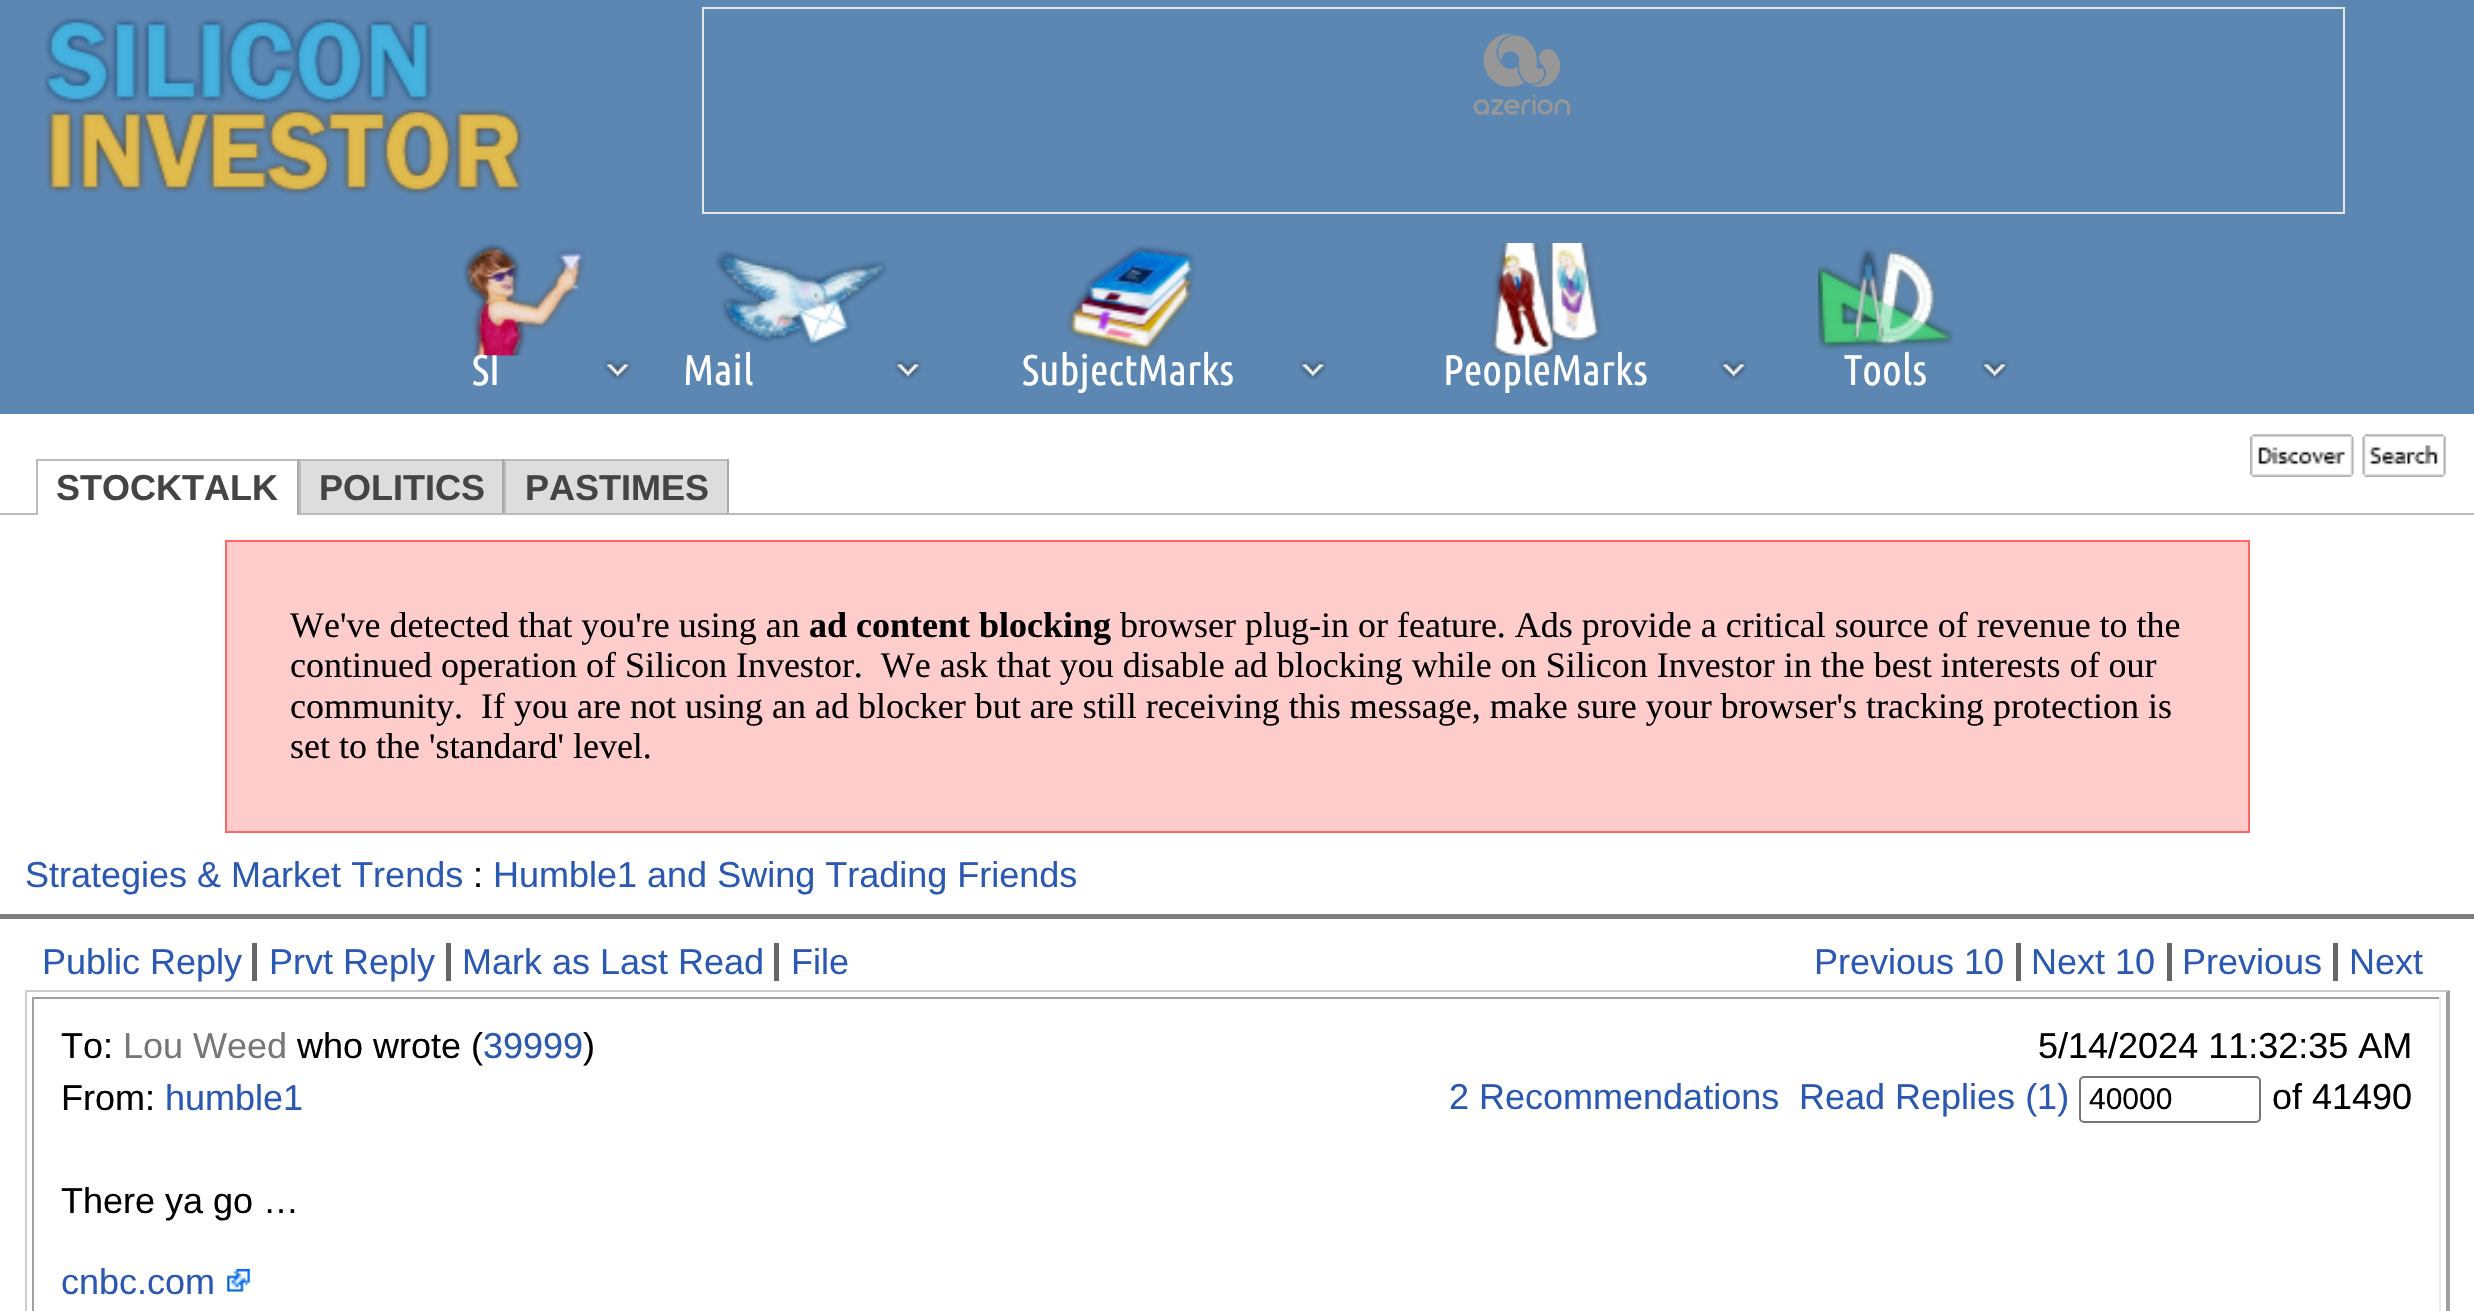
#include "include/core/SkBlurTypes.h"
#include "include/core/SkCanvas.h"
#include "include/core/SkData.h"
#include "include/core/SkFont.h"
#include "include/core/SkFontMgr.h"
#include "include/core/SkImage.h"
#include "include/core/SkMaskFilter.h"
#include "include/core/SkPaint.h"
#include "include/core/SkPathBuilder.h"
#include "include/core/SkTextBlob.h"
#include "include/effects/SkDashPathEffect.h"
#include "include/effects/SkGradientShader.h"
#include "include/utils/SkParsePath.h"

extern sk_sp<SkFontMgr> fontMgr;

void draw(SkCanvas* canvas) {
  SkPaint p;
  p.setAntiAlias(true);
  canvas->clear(SK_ColorWHITE);
  p.setColor(SkColorSetRGB(92, 135, 178));
  canvas->drawRect(SkRect::MakeLTRB(0, 0, 2474, 414), p);
  canvas->drawImageRect(SkImages::DeferredFromEncodedData(SkData::MakeFromFileName("images/1.png")), SkRect::MakeLTRB(44, 17, 525, 196), SkSamplingOptions());
  p.setStyle(SkPaint::kStroke_Style);
  p.setStrokeWidth(2);
  p.setColor(SkColorSetRGB(230, 230, 230));
  canvas->drawRect(SkRect::MakeLTRB(703, 8, 2344, 213), p);
  canvas->drawImageRect(SkImages::DeferredFromEncodedData(SkData::MakeFromFileName("images/2.png")), SkRect::MakeLTRB(1473, 33, 1570, 115), SkSamplingOptions());
  canvas->drawImageRect(SkImages::DeferredFromEncodedData(SkData::MakeFromFileName("images/3.png")), SkRect::MakeLTRB(463, 243, 586, 356), SkSamplingOptions());
  canvas->drawImageRect(SkImages::DeferredFromEncodedData(SkData::MakeFromFileName("images/4.png")), SkRect::MakeLTRB(603, 360, 632, 380), SkSamplingOptions());
  canvas->drawImageRect(SkImages::DeferredFromEncodedData(SkData::MakeFromFileName("images/5.png")), SkRect::MakeLTRB(715, 250, 887, 348), SkSamplingOptions());
  canvas->drawImageRect(SkImages::DeferredFromEncodedData(SkData::MakeFromFileName("images/6.png")), SkRect::MakeLTRB(894, 360, 922, 380), SkSamplingOptions());
  canvas->drawImageRect(SkImages::DeferredFromEncodedData(SkData::MakeFromFileName("images/7.png")), SkRect::MakeLTRB(1066, 245, 1196, 354), SkSamplingOptions());
  canvas->drawImageRect(SkImages::DeferredFromEncodedData(SkData::MakeFromFileName("images/6.png")), SkRect::MakeLTRB(1299, 360, 1327, 380), SkSamplingOptions());
  canvas->drawImageRect(SkImages::DeferredFromEncodedData(SkData::MakeFromFileName("images/8.png")), SkRect::MakeLTRB(1489, 243, 1603, 356), SkSamplingOptions());
  canvas->drawImageRect(SkImages::DeferredFromEncodedData(SkData::MakeFromFileName("images/4.png")), SkRect::MakeLTRB(1719, 360, 1748, 380), SkSamplingOptions());
  canvas->drawImageRect(SkImages::DeferredFromEncodedData(SkData::MakeFromFileName("images/9.png")), SkRect::MakeLTRB(1818, 247, 1953, 350), SkSamplingOptions());
  canvas->drawImageRect(SkImages::DeferredFromEncodedData(SkData::MakeFromFileName("images/4.png")), SkRect::MakeLTRB(1980, 360, 2009, 380), SkSamplingOptions());
  canvas->drawImageRect(SkImages::DeferredFromEncodedData(SkData::MakeFromFileName("images/10.png")), SkRect::MakeLTRB(2250, 434, 2354, 477), SkSamplingOptions());
  canvas->drawImageRect(SkImages::DeferredFromEncodedData(SkData::MakeFromFileName("images/11.png")), SkRect::MakeLTRB(2362, 434, 2446, 477), SkSamplingOptions());
  p.setStyle(SkPaint::kFill_Style);
  p.setColor(SkColorSetRGB(187, 187, 187));
  canvas->drawRect(SkRect::MakeLTRB(36, 459, 729, 461), p);
  p.setColor(SkColorSetRGB(170, 170, 170));
  canvas->drawRect(SkRect::MakeLTRB(502, 459, 504, 515), p);
  p.setColor(SkColorSetRGB(187, 187, 187));
  canvas->drawRect(SkRect::MakeLTRB(299, 459, 301, 515), p);
  p.setColor(SkColorSetRGB(170, 170, 170));
  canvas->drawRect(SkRect::MakeLTRB(727, 459, 729, 515), p);
  p.setColor(SkColorSetRGB(187, 187, 187));
  canvas->drawRect(SkRect::MakeLTRB(504, 459, 506, 515), p);
  canvas->drawRect(SkRect::MakeLTRB(0, 513, 2474, 515), p);
  p.setColor(SK_ColorWHITE);
  canvas->drawRect(SkRect::MakeLTRB(38, 513, 297, 515), p);
  p.setColor(SkColorSetRGB(170, 170, 170));
  canvas->drawRect(SkRect::MakeLTRB(297, 459, 299, 515), p);
  p.setColor(SkColorSetRGB(187, 187, 187));
  canvas->drawRect(SkRect::MakeLTRB(36, 459, 38, 515), p);
  p.setColor(SkColorSetRGB(221, 221, 221));
  canvas->drawRect(SkRect::MakeLTRB(301, 461, 502, 513), p);
  canvas->drawRect(SkRect::MakeLTRB(506, 461, 727, 513), p);
  p.setColor(SkColorSetRGB(255, 204, 204));
  canvas->drawRect(SkRect::MakeLTRB(226, 541, 2249, 832), p);
  p.setStyle(SkPaint::kStroke_Style);
  p.setColor(SkColorSetRGB(255, 102, 102));
  canvas->drawRect(SkRect::MakeLTRB(226, 541, 2249, 832), p);
  p.setStyle(SkPaint::kFill_Style);
  p.setColor(SkColorSetRGB(128, 128, 128));
  canvas->drawRect(SkRect::MakeLTRB(0, 914, 2474, 919), p);
  p.setColor(SkColorSetRGB(102, 102, 102));
  canvas->drawRect(SkRect::MakeLTRB(252, 943, 257, 981), p);
  canvas->drawRect(SkRect::MakeLTRB(446, 943, 451, 981), p);
  canvas->drawRect(SkRect::MakeLTRB(774, 943, 779, 981), p);
  canvas->drawRect(SkRect::MakeLTRB(2016, 943, 2021, 981), p);
  canvas->drawRect(SkRect::MakeLTRB(2167, 943, 2172, 981), p);
  canvas->drawRect(SkRect::MakeLTRB(2333, 943, 2338, 981), p);
  p.setColor(SkColorSetRGB(203, 203, 203));
  canvas->drawPath(SkPathBuilder().moveTo(25, 990).lineTo(2450, 990).lineTo(2446, 992).lineTo(27, 992).close().detach(), p);
  p.setColor(SkColorSetRGB(159, 159, 159));
  canvas->drawPath(SkPathBuilder().moveTo(2450, 990).lineTo(2450, 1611).lineTo(2446, 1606).lineTo(2446, 992).close().detach(), p);
  p.setColor(SkColorSetRGB(203, 203, 203));
  canvas->drawPath(SkPathBuilder().moveTo(25, 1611).lineTo(25, 990).lineTo(27, 992).lineTo(27, 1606).close().detach(), p);
  p.setColor(SkColorSetRGB(159, 159, 159));
  canvas->drawRect(SkRect::MakeLTRB(32, 997, 2441, 999), p);
  p.setColor(SkColorSetRGB(235, 235, 235));
  canvas->drawRect(SkRect::MakeLTRB(2439, 997, 2441, 1311), p);
  p.setColor(SkColorSetRGB(159, 159, 159));
  canvas->drawRect(SkRect::MakeLTRB(32, 997, 34, 1311), p);
  p.setStyle(SkPaint::kStroke_Style);
  p.setColor(SkColorSetRGB(118, 118, 118));
  canvas->drawRoundRect(SkRect::MakeLTRB(2080, 1077, 2260, 1122), 4, 4, p);
  canvas->drawImageRect(SkImages::DeferredFromEncodedData(SkData::MakeFromFileName("images/12.png")), SkRect::MakeLTRB(227, 1269, 250, 1292), SkSamplingOptions());
  SkFont font1(fontMgr->matchFamilyStyle("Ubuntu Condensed", SkFontStyle::Normal()), 42.75f);
  font1.setSubpixel(true);
  p.setStyle(SkPaint::kFill_Style);
  p.setColor(SK_ColorWHITE);
  canvas->drawString("SI", 472, 385, font1, p);
  canvas->drawString("Mail", 683, 385, font1, p);
  canvas->drawString("SubjectMarks", 1022, 385, font1, p);
  canvas->drawString("PeopleMarks", 1443, 385, font1, p);
  canvas->drawString("Tools", 1844, 385, font1, p);
  SkFont font2(fontMgr->matchFamilyStyle("Liberation Sans", SkFontStyle::Bold()), 36);
  font2.setSubpixel(true);
  p.setColor(SkColorSetRGB(68, 68, 68));
  canvas->drawString("STOCKTALK", 56, 500, font2, p);
  canvas->drawString("POLITICS", 319, 500, font2, p);
  canvas->drawString("PASTIMES", 525, 500, font2, p);
  SkFont font3(fontMgr->matchFamilyStyle("Liberation Serif", SkFontStyle::Normal()), 36);
  font3.setSubpixel(true);
  p.setColor(SK_ColorBLACK);
  canvas->drawString("We've detected that you're using an", 290, 637, font3, p);
  SkFont font4(fontMgr->matchFamilyStyle("Liberation Serif", SkFontStyle::Bold()), 36);
  font4.setSubpixel(true);
  canvas->drawString("ad content blocking", 809, 637, font4, p);
  canvas->drawString("browser plug-in or feature. Ads provide a critical source of revenue to the", 1120, 637, font3, p);
  canvas->drawString("continued operation of Silicon Investor.  We ask that you disable ad blocking while on Silicon Investor in the best interests of our", 290, 677, font3, p);
  canvas->drawString("community.  If you are not using an ad blocker but are still receiving this message, make sure your browser's tracking protection is", 290, 718, font3, p);
  canvas->drawString("set to the 'standard' level.", 290, 758, font3, p);
  SkFont font5(fontMgr->matchFamilyStyle("Liberation Sans", SkFontStyle::Normal()), 36);
  font5.setSubpixel(true);
  p.setColor(SkColorSetRGB(43, 89, 178));
  canvas->drawString("Strategies & Market Trends", 25, 887, font5, p);
  p.setColor(SK_ColorBLACK);
  canvas->drawString(":", 473, 887, font5, p);
  p.setColor(SkColorSetRGB(43, 89, 178));
  canvas->drawString("Humble1 and Swing Trading Friends", 493, 887, font5, p);
  canvas->drawString("Public Reply", 42, 974, font5, p);
  canvas->drawString("Prvt Reply", 269, 974, font5, p);
  canvas->drawString("Mark as Last Read", 462, 974, font5, p);
  canvas->drawString("File", 791, 974, font5, p);
  canvas->drawString("Previous 10", 1814, 974, font5, p);
  canvas->drawString("Next 10", 2031, 974, font5, p);
  canvas->drawString("Previous", 2182, 974, font5, p);
  canvas->drawString("Next", 2349, 974, font5, p);
  p.setColor(SK_ColorBLACK);
  canvas->drawString("To:", 61, 1058, font5, p);
  p.setColor(SkColorSetRGB(119, 119, 119));
  canvas->drawString("Lou Weed", 123, 1058, font5, p);
  p.setColor(SK_ColorBLACK);
  canvas->drawString("who wrote (", 297, 1058, font5, p);
  p.setColor(SkColorSetRGB(43, 89, 178));
  canvas->drawString("39999", 483, 1058, font5, p);
  p.setColor(SK_ColorBLACK);
  canvas->drawString(")", 583, 1058, font5, p);
  canvas->drawString("5/14/2024 11:32:35 AM", 2038, 1058, font5, p);
  canvas->drawString("From:", 61, 1110, font5, p);
  p.setColor(SkColorSetRGB(43, 89, 178));
  canvas->drawString("humble1", 165, 1110, font5, p);
  canvas->drawString("2 Recommendations", 1449, 1109, font5, p);
  canvas->drawString("Read Replies (1)", 1799, 1109, font5, p);
  SkFont font6(fontMgr->matchFamilyStyle("Liberation Sans", SkFontStyle::Normal()), 30);
  font6.setSubpixel(true);
  p.setColor(SK_ColorBLACK);
  canvas->drawString("40000", 2089, 1109, font6, p);
  canvas->drawString("of 41490", 2272, 1109, font5, p);
  canvas->drawString("There ya go …", 61, 1213, font5, p);
  p.setColor(SkColorSetRGB(43, 89, 178));
  canvas->drawString("cnbc.com", 61, 1294, font5, p);
}
